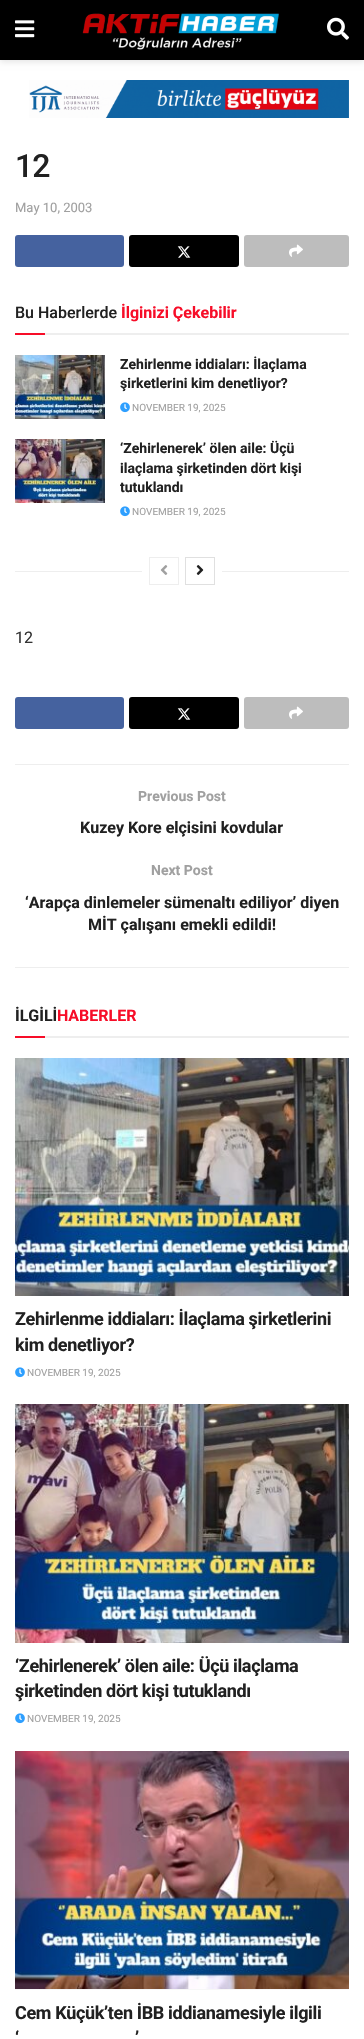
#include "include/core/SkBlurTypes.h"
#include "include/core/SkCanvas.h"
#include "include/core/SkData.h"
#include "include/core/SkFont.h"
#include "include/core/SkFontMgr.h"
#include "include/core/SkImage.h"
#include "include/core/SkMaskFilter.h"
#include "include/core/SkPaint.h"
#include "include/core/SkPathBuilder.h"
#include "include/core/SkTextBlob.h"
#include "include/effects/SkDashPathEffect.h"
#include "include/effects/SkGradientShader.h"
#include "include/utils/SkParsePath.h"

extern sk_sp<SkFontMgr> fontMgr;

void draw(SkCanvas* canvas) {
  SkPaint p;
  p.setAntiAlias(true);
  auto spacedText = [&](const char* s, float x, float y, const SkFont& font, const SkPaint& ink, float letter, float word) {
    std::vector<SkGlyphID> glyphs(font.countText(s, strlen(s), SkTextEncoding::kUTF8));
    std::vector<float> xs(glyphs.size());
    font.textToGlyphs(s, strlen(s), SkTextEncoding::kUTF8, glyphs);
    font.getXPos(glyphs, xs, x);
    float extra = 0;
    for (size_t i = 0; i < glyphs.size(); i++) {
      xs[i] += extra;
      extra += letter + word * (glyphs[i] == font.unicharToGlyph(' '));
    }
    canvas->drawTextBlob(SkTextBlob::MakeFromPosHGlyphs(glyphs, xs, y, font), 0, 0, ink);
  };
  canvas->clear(SK_ColorWHITE);
  p.setColor(SkColorSetARGB(26, 0, 0, 0));
  p.setMaskFilter(SkMaskFilter::MakeBlur(kNormal_SkBlurStyle, 3));
  canvas->drawRect(SkRect::MakeLTRB(0, 2, 364, 62), p);
  p.setMaskFilter(nullptr);
  p.setColor(SK_ColorBLACK);
  canvas->drawRect(SkRect::MakeLTRB(0, 0, 364, 60), p);
  canvas->drawImageRect(SkImages::DeferredFromEncodedData(SkData::MakeFromFileName("images/1.png")), SkRect::MakeLTRB(15, 20, 35, 38), SkSamplingOptions());
  canvas->drawImageRect(SkImages::DeferredFromEncodedData(SkData::MakeFromFileName("images/2.png")), SkRect::MakeLTRB(82, 13, 279, 50), SkSamplingOptions());
  canvas->drawImageRect(SkImages::DeferredFromEncodedData(SkData::MakeFromFileName("images/3.png")), SkRect::MakeLTRB(327, 17, 349, 40), SkSamplingOptions());
  canvas->drawImageRect(SkImages::DeferredFromEncodedData(SkData::MakeFromFileName("images/4.png")), SkRect::MakeLTRB(29, 80, 349, 118), SkSamplingOptions());
  p.setColor(SkColorSetRGB(69, 98, 159));
  canvas->drawRoundRect(SkRect::MakeLTRB(15, 235, 124, 267), 3, 3, p);
  p.setColor(SK_ColorBLACK);
  canvas->drawRoundRect(SkRect::MakeLTRB(129, 235, 239, 267), 3, 3, p);
  canvas->drawImageRect(SkImages::DeferredFromEncodedData(SkData::MakeFromFileName("images/5.png")), SkRect::MakeLTRB(177, 246, 191, 258), SkSamplingOptions());
  p.setColor(SkColorSetRGB(189, 189, 189));
  canvas->drawRoundRect(SkRect::MakeLTRB(244, 235, 349, 267), 3, 3, p);
  canvas->drawImageRect(SkImages::DeferredFromEncodedData(SkData::MakeFromFileName("images/6.png")), SkRect::MakeLTRB(289, 244, 303, 257), SkSamplingOptions());
  p.setColor(SkColorSetRGB(238, 238, 238));
  canvas->drawRect(SkRect::MakeLTRB(45, 333, 349, 335), p);
  p.setColor(SkColorSetRGB(247, 13, 40));
  canvas->drawRect(SkRect::MakeLTRB(15, 333, 45, 335), p);
  canvas->drawImageRect(SkImages::DeferredFromEncodedData(SkData::MakeFromFileName("images/7.png")), SkRect::MakeLTRB(15, 355, 105, 419), SkSamplingOptions());
  canvas->drawImageRect(SkImages::DeferredFromEncodedData(SkData::MakeFromFileName("images/8.png")), SkRect::MakeLTRB(120, 402, 130, 413), SkSamplingOptions());
  canvas->drawImageRect(SkImages::DeferredFromEncodedData(SkData::MakeFromFileName("images/9.png")), SkRect::MakeLTRB(15, 439, 105, 503), SkSamplingOptions());
  canvas->drawImageRect(SkImages::DeferredFromEncodedData(SkData::MakeFromFileName("images/8.png")), SkRect::MakeLTRB(120, 506, 130, 517), SkSamplingOptions());
  p.setColor(SkColorSetRGB(238, 238, 238));
  canvas->drawRect(SkRect::MakeLTRB(15, 571, 142, 572), p);
  p.setStyle(SkPaint::kStroke_Style);
  p.setStrokeWidth(1);
  canvas->drawRect(SkRect::MakeLTRB(149.5f, 557.5f, 178.5f, 584.5f), p);
  canvas->drawImageRect(SkImages::DeferredFromEncodedData(SkData::MakeFromFileName("images/10.png")), SkRect::MakeLTRB(160, 565, 168, 575), SkSamplingOptions());
  p.setColor(SkColorSetRGB(224, 224, 224));
  canvas->drawRect(SkRect::MakeLTRB(185.5f, 557.5f, 214.5f, 584.5f), p);
  canvas->drawImageRect(SkImages::DeferredFromEncodedData(SkData::MakeFromFileName("images/11.png")), SkRect::MakeLTRB(196, 565, 204, 575), SkSamplingOptions());
  p.setStyle(SkPaint::kFill_Style);
  p.setColor(SkColorSetRGB(238, 238, 238));
  canvas->drawRect(SkRect::MakeLTRB(222, 571, 349, 572), p);
  p.setColor(SkColorSetRGB(69, 98, 159));
  canvas->drawRoundRect(SkRect::MakeLTRB(15, 697, 124, 729), 3, 3, p);
  p.setColor(SK_ColorBLACK);
  canvas->drawRoundRect(SkRect::MakeLTRB(129, 697, 239, 729), 3, 3, p);
  canvas->drawImageRect(SkImages::DeferredFromEncodedData(SkData::MakeFromFileName("images/5.png")), SkRect::MakeLTRB(177, 708, 191, 720), SkSamplingOptions());
  p.setColor(SkColorSetRGB(189, 189, 189));
  canvas->drawRoundRect(SkRect::MakeLTRB(244, 697, 349, 729), 3, 3, p);
  canvas->drawImageRect(SkImages::DeferredFromEncodedData(SkData::MakeFromFileName("images/6.png")), SkRect::MakeLTRB(289, 706, 303, 719), SkSamplingOptions());
  p.setColor(SkColorSetRGB(238, 238, 238));
  canvas->drawRect(SkRect::MakeLTRB(15, 764, 349, 765), p);
  canvas->drawRect(SkRect::MakeLTRB(15, 967, 349, 968), p);
  canvas->drawRect(SkRect::MakeLTRB(45, 1036, 349, 1038), p);
  p.setColor(SkColorSetRGB(247, 13, 40));
  canvas->drawRect(SkRect::MakeLTRB(15, 1036, 45, 1038), p);
  canvas->drawImageRect(SkImages::DeferredFromEncodedData(SkData::MakeFromFileName("images/12.png")), SkRect::MakeLTRB(15, 1058, 349, 1296), SkSamplingOptions());
  canvas->drawImageRect(SkImages::DeferredFromEncodedData(SkData::MakeFromFileName("images/8.png")), SkRect::MakeLTRB(15, 1367, 25, 1378), SkSamplingOptions());
  canvas->drawImageRect(SkImages::DeferredFromEncodedData(SkData::MakeFromFileName("images/13.png")), SkRect::MakeLTRB(15, 1404, 349, 1643), SkSamplingOptions());
  canvas->drawImageRect(SkImages::DeferredFromEncodedData(SkData::MakeFromFileName("images/8.png")), SkRect::MakeLTRB(15, 1713, 25, 1724), SkSamplingOptions());
  p.setColor(SkColorSetRGB(247, 247, 247));
  canvas->drawRect(SkRect::MakeLTRB(15, 1989, 349, 1990), p);
  canvas->drawImageRect(SkImages::DeferredFromEncodedData(SkData::MakeFromFileName("images/14.png")), SkRect::MakeLTRB(15, 1751, 349, 1989), SkSamplingOptions());
  SkFont font1(fontMgr->matchFamilyStyle("Roboto", SkFontStyle(500, SkFontStyle::kNormal_Width, SkFontStyle::kUpright_Slant)), 32);
  font1.setSubpixel(true);
  p.setColor(SkColorSetRGB(33, 33, 33));
  spacedText("12", 15, 177, font1, p, -1, 0);
  SkFont font2(fontMgr->matchFamilyStyle("Roboto", SkFontStyle::Normal()), 13);
  font2.setSubpixel(true);
  p.setColor(SkColorSetRGB(160, 160, 160));
  canvas->drawString("May 10, 2003", 15, 212, font2, p);
  SkFont font3(fontMgr->matchFamilyStyle("Roboto", SkFontStyle(500, SkFontStyle::kNormal_Width, SkFontStyle::kUpright_Slant)), 16);
  font3.setSubpixel(true);
  p.setColor(SkColorSetRGB(33, 33, 33));
  canvas->drawString("Bu Haberlerde", 15, 318, font3, p);
  SkFont font4(fontMgr->matchFamilyStyle("Roboto", SkFontStyle::Bold()), 16);
  font4.setSubpixel(true);
  p.setColor(SkColorSetRGB(247, 13, 40));
  canvas->drawString("İlginizi Çekebilir", 121, 318, font4, p);
  SkFont font5(fontMgr->matchFamilyStyle("Roboto", SkFontStyle::Bold()), 14);
  font5.setSubpixel(true);
  p.setColor(SkColorSetRGB(33, 33, 33));
  canvas->drawString("Zehirlenme iddiaları: İlaçlama", 120, 369, font5, p);
  canvas->drawString("şirketlerini kim denetliyor?", 120, 388, font5, p);
  SkFont font6(fontMgr->matchFamilyStyle("Roboto", SkFontStyle::Normal()), 10);
  font6.setSubpixel(true);
  p.setColor(SkColorSetRGB(160, 160, 160));
  canvas->drawString("NOVEMBER 19, 2025", 132, 411, font6, p);
  p.setColor(SkColorSetRGB(33, 33, 33));
  canvas->drawString("‘Zehirlenerek’ ölen aile: Üçü", 120, 453, font5, p);
  canvas->drawString("ilaçlama şirketinden dört kişi", 120, 473, font5, p);
  canvas->drawString("tutuklandı", 120, 492, font5, p);
  p.setColor(SkColorSetRGB(160, 160, 160));
  canvas->drawString("NOVEMBER 19, 2025", 132, 515, font6, p);
  SkFont font7(fontMgr->matchFamilyStyle("Roboto", SkFontStyle::Normal()), 16);
  font7.setSubpixel(true);
  p.setColor(SkColorSetRGB(51, 51, 51));
  canvas->drawString("12", 15, 643, font7, p);
  p.setColor(SkColorSetRGB(160, 160, 160));
  canvas->drawString("Previous Post", 138, 801, font5, p);
  p.setColor(SkColorSetRGB(33, 33, 33));
  canvas->drawString("Kuzey Kore elçisini kovdular", 80, 833, font4, p);
  p.setColor(SkColorSetRGB(160, 160, 160));
  canvas->drawString("Next Post", 151, 875, font5, p);
  p.setColor(SkColorSetRGB(33, 33, 33));
  canvas->drawString("‘Arapça dinlemeler sümenaltı ediliyor’ diyen", 25, 908, font4, p);
  canvas->drawString("MİT çalışanı emekli edildi!", 88, 930, font4, p);
  canvas->drawString("İLGİLİ", 15, 1021, font4, p);
  p.setColor(SkColorSetRGB(247, 13, 40));
  canvas->drawString("HABERLER", 57, 1021, font4, p);
  SkFont font8(fontMgr->matchFamilyStyle("Roboto", SkFontStyle::Bold()), 18);
  font8.setSubpixel(true);
  p.setColor(SkColorSetRGB(33, 33, 33));
  spacedText("Zehirlenme iddiaları: İlaçlama şirketlerini", 15, 1325, font8, p, -0.35f, 0);
  spacedText("kim denetliyor?", 15, 1351, font8, p, -0.35f, 0);
  p.setColor(SkColorSetRGB(160, 160, 160));
  canvas->drawString("NOVEMBER 19, 2025", 27, 1376, font6, p);
  p.setColor(SkColorSetRGB(33, 33, 33));
  spacedText("‘Zehirlenerek’ ölen aile: Üçü ilaçlama", 15, 1672, font8, p, -0.35f, 0);
  spacedText("şirketinden dört kişi tutuklandı", 15, 1697, font8, p, -0.35f, 0);
  p.setColor(SkColorSetRGB(160, 160, 160));
  canvas->drawString("NOVEMBER 19, 2025", 27, 1722, font6, p);
  p.setColor(SkColorSetRGB(33, 33, 33));
  spacedText("Cem Küçük’ten İBB iddianamesiyle ilgili", 15, 2019, font8, p, -0.35f, 0);
  spacedText("‘", 15, 2044, font8, p, -0.35f, 0);
  spacedText("’", 135, 2044, font8, p, -0.35f, 0);
}
